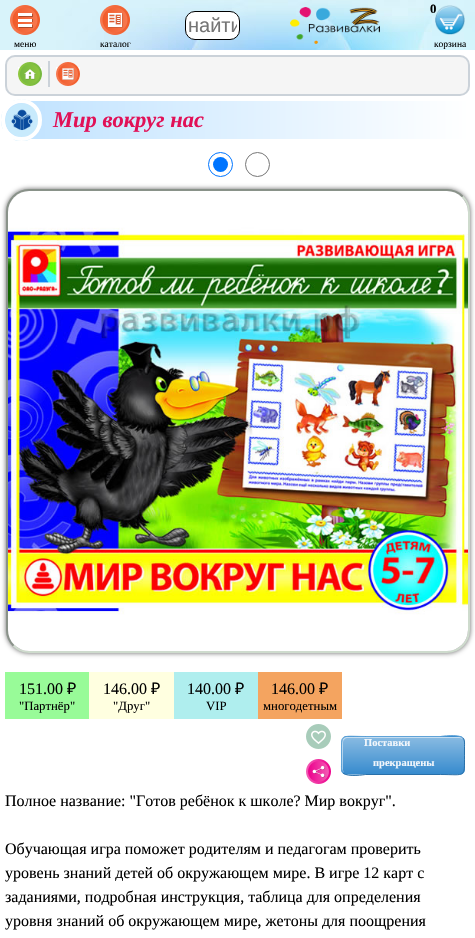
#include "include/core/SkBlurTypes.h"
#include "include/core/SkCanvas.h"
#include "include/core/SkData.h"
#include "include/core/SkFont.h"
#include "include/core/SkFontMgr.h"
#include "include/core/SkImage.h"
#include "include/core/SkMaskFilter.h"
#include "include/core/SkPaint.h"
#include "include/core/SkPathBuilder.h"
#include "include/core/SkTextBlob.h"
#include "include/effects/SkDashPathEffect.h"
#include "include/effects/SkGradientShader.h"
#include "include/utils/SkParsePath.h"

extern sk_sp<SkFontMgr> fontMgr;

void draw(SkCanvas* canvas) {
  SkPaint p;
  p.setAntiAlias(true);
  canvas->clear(SK_ColorWHITE);
  canvas->drawImageRect(SkImages::DeferredFromEncodedData(SkData::MakeFromFileName("images/1.png")), SkRect::MakeLTRB(0, 0, 475, 50), SkSamplingOptions());
  p.setColor(SK_ColorWHITE);
  canvas->drawRoundRect(SkRect::MakeLTRB(185.5f, 11.5f, 239.5f, 39.5f), 9.5f, 9.5f, p);
  p.setStyle(SkPaint::kStroke_Style);
  p.setStrokeWidth(1);
  p.setColor(SK_ColorBLACK);
  canvas->drawRoundRect(SkRect::MakeLTRB(185.5f, 11.5f, 239.5f, 39.5f), 9.5f, 9.5f, p);
  canvas->drawImageRect(SkImages::DeferredFromEncodedData(SkData::MakeFromFileName("images/2.png")), SkRect::MakeLTRB(290, 7, 380, 44), SkSamplingOptions());
  canvas->drawImageRect(SkImages::DeferredFromEncodedData(SkData::MakeFromFileName("images/3.png")), SkRect::MakeLTRB(435, 5, 465, 35), SkSamplingOptions());
  canvas->drawImageRect(SkImages::DeferredFromEncodedData(SkData::MakeFromFileName("images/4.png")), SkRect::MakeLTRB(10, 5, 40, 35), SkSamplingOptions());
  canvas->drawImageRect(SkImages::DeferredFromEncodedData(SkData::MakeFromFileName("images/5.png")), SkRect::MakeLTRB(100, 5, 130, 35), SkSamplingOptions());
  p.setStyle(SkPaint::kFill_Style);
  p.setColor(SkColorSetRGB(245, 245, 245));
  canvas->drawRoundRect(SkRect::MakeLTRB(6, 56, 469, 95), 9, 9, p);
  p.setStyle(SkPaint::kStroke_Style);
  p.setStrokeWidth(2);
  p.setColor(SkColorSetRGB(203, 210, 217));
  canvas->drawRoundRect(SkRect::MakeLTRB(6, 56, 469, 95), 9, 9, p);
  p.setStyle(SkPaint::kFill_Style);
  canvas->drawRect(SkRect::MakeLTRB(48, 61, 50, 87), p);
  p.setColor(SK_ColorWHITE);
  canvas->drawRect(SkRect::MakeLTRB(18, 67, 42, 78), p);
  canvas->drawImageRect(SkImages::DeferredFromEncodedData(SkData::MakeFromFileName("images/6.png")), SkRect::MakeLTRB(18, 62, 42, 86), SkSamplingOptions());
  canvas->drawRect(SkRect::MakeLTRB(56, 67, 80, 78), p);
  canvas->drawImageRect(SkImages::DeferredFromEncodedData(SkData::MakeFromFileName("images/7.png")), SkRect::MakeLTRB(56, 62, 80, 86), SkSamplingOptions());
  {
    const SkColor colors[] = {SkColorSetRGB(191, 226, 255), SK_ColorWHITE};
    const float stops[] = {0, 1};
    const SkPoint ends[] = {{5, 120}, {470, 120}};
    p.setShader(SkGradientShader::MakeLinear(ends, colors, stops, 2, SkTileMode::kClamp));
    p.setAlpha(255);
  }
  canvas->drawPath(SkPathBuilder().moveTo(24, 101).lineTo(470, 101).lineTo(470, 139).lineTo(24, 139).cubicTo(13.5f, 139, 5, 130.5f, 5, 120).cubicTo(5, 109.5f, 13.5f, 101, 24, 101).close().detach(), p);
  canvas->drawImageRect(SkImages::DeferredFromEncodedData(SkData::MakeFromFileName("images/8.png")), SkRect::MakeLTRB(1, 99, 42, 141), SkSamplingOptions());
  p.setStyle(SkPaint::kStroke_Style);
  p.setStrokeWidth(4);
  p.setShader(nullptr);
  p.setColor(SK_ColorWHITE);
  canvas->drawRoundRect(SkRect::MakeLTRB(3, 101, 40, 139), 18.5f, 18.5f, p);
  p.setStrokeWidth(1);
  p.setColor(SkColorSetRGB(0, 117, 255));
  canvas->drawCircle(220.5f, 164.5f, 12, p);
  p.setStyle(SkPaint::kFill_Style);
  canvas->drawCircle(220.5f, 164.5f, 7.5f, p);
  p.setStyle(SkPaint::kStroke_Style);
  p.setColor(SkColorSetRGB(118, 118, 118));
  canvas->drawCircle(257.5f, 164.5f, 12, p);
  p.setStyle(SkPaint::kFill_Style);
  p.setColor(SkColorSetRGB(102, 102, 102));
  p.setMaskFilter(SkMaskFilter::MakeBlur(kNormal_SkBlurStyle, 2.5f));
  canvas->drawRoundRect(SkRect::MakeLTRB(6, 189, 470, 653), 23, 23, p);
  p.setMaskFilter(nullptr);
  p.setStyle(SkPaint::kStroke_Style);
  p.setStrokeWidth(2);
  p.setColor(SkColorSetRGB(206, 219, 205));
  canvas->drawPath(SkPathBuilder().moveTo(462.5f, 196.5f).cubicTo(466.5f, 200.5f, 469, 206.5f, 469, 212).lineTo(469, 630).cubicTo(469, 635.5f, 466.5f, 641.5f, 462.5f, 645.5f).cubicTo(458.5f, 649.5f, 452.5f, 652, 447, 652).lineTo(29, 652).cubicTo(23.5f, 652, 17.5f, 649.5f, 13.5f, 645.5f).detach(), p);
  p.setColor(SkColorSetRGB(137, 146, 137));
  canvas->drawPath(SkPathBuilder().moveTo(13.5f, 645.5f).cubicTo(9.5f, 641.5f, 7, 635.5f, 7, 630).lineTo(7, 212).cubicTo(7, 206.5f, 9.5f, 200.5f, 13.5f, 196.5f).cubicTo(17.5f, 192.5f, 23.5f, 190, 29, 190).lineTo(447, 190).cubicTo(452.5f, 190, 458.5f, 192.5f, 462.5f, 196.5f).detach(), p);
  canvas->drawImageRect(SkImages::DeferredFromEncodedData(SkData::MakeFromFileName("images/9.png")), SkRect::MakeLTRB(8, 191, 468, 651), SkSamplingOptions());
  p.setStyle(SkPaint::kFill_Style);
  p.setColor(SkColorSetRGB(152, 251, 152));
  canvas->drawRect(SkRect::MakeLTRB(5, 672, 89, 719), p);
  p.setColor(SkColorSetRGB(255, 255, 224));
  canvas->drawRect(SkRect::MakeLTRB(89, 672, 174, 719), p);
  p.setColor(SkColorSetRGB(175, 238, 238));
  canvas->drawRect(SkRect::MakeLTRB(174, 672, 258, 719), p);
  p.setColor(SkColorSetRGB(244, 164, 96));
  canvas->drawRect(SkRect::MakeLTRB(258, 672, 342, 719), p);
  canvas->drawImageRect(SkImages::DeferredFromEncodedData(SkData::MakeFromFileName("images/10.png")), SkRect::MakeLTRB(306, 724, 331, 749), SkSamplingOptions());
  canvas->save();
  canvas->clipPath(SkPathBuilder().moveTo(347, 736).lineTo(459, 736).cubicTo(462.5f, 736, 465, 738.5f, 465, 742).lineTo(465, 769).cubicTo(465, 772.5f, 462.5f, 775, 459, 775).lineTo(347, 775).cubicTo(343.5f, 775, 341, 772.5f, 341, 769).lineTo(341, 742).cubicTo(341, 738.5f, 343.5f, 736, 347, 736).close().detach(), true);
  {
    const SkColor colors[] = {SkColorSetRGB(137, 187, 226), SkColorSetRGB(96, 163, 216), SkColorSetRGB(55, 139, 206)};
    const float stops[] = {0, 0.5f, 1};
    const SkPoint ends[] = {{403, 700}, {403, 737}};
    p.setShader(SkGradientShader::MakeLinear(ends, colors, stops, 3, SkTileMode::kClamp));
    p.setAlpha(255);
  }
  canvas->drawRect(SkRect::MakeLTRB(341, 736, 465, 737), p);
  {
    const SkColor colors[] = {SkColorSetRGB(137, 187, 226), SkColorSetRGB(96, 163, 216), SkColorSetRGB(55, 139, 206)};
    const float stops[] = {0, 0.5f, 1};
    const SkPoint ends[] = {{403, 737}, {403, 774}};
    p.setShader(SkGradientShader::MakeLinear(ends, colors, stops, 3, SkTileMode::kClamp));
    p.setAlpha(255);
  }
  canvas->drawRect(SkRect::MakeLTRB(341, 737, 465, 774), p);
  {
    const SkColor colors[] = {SkColorSetRGB(137, 187, 226), SkColorSetRGB(96, 163, 216), SkColorSetRGB(55, 139, 206)};
    const float stops[] = {0, 0.5f, 1};
    const SkPoint ends[] = {{403, 774}, {403, 811}};
    p.setShader(SkGradientShader::MakeLinear(ends, colors, stops, 3, SkTileMode::kClamp));
    p.setAlpha(255);
  }
  canvas->drawRect(SkRect::MakeLTRB(341, 774, 465, 775), p);
  canvas->restore();
  p.setShader(nullptr);
  p.setColor(SkColorSetARGB(128, 255, 255, 255));
  canvas->drawPath(SkPathBuilder().moveTo(348, 738).lineTo(460, 738).lineTo(463, 739).cubicTo(462, 738, 460, 737, 459, 737).lineTo(347, 737).cubicTo(344, 737, 342, 739, 342, 742).lineTo(342, 769).cubicTo(342, 770, 343, 772, 344, 773).lineTo(343, 770).lineTo(343, 743).cubicTo(343, 740, 345, 738, 348, 738).close().detach(), p);
  p.setStyle(SkPaint::kStroke_Style);
  p.setStrokeWidth(1);
  p.setColor(SkColorSetRGB(41, 112, 169));
  canvas->drawPath(SkPathBuilder().moveTo(463, 738).cubicTo(465, 740.5f, 464.5f, 743.5f, 464.5f, 746.5f).lineTo(464.5f, 755.5f).cubicTo(464.5f, 778.5f, 466, 774.5f, 440.5f, 774.5f).lineTo(365.5f, 774.5f).cubicTo(365.5f, 774.5f, 347.5f, 777.5f, 343, 773).detach(), p);
  p.setColor(SkColorSetRGB(96, 163, 216));
  canvas->drawPath(SkPathBuilder().moveTo(343, 773).cubicTo(341, 770.5f, 341.5f, 767.5f, 341.5f, 764.5f).lineTo(341.5f, 755.5f).cubicTo(341.5f, 732.5f, 340, 736.5f, 365.5f, 736.5f).lineTo(440.5f, 736.5f).cubicTo(440.5f, 736.5f, 458.5f, 733.5f, 463, 738).detach(), p);
  canvas->drawImageRect(SkImages::DeferredFromEncodedData(SkData::MakeFromFileName("images/11.png")), SkRect::MakeLTRB(306, 759, 331, 784), SkSamplingOptions());
  canvas->save();
  canvas->clipRect(SkRect::MakeLTRB(188, 14, 237, 37));
  SkFont font1(fontMgr->matchFamilyStyle("Liberation Sans", SkFontStyle::Normal()), 20);
  font1.setSubpixel(true);
  p.setStyle(SkPaint::kFill_Style);
  p.setColor(SkColorSetRGB(117, 117, 117));
  canvas->drawString("найти", 188, 32, font1, p);
  canvas->restore();
  SkFont font2(fontMgr->matchFamilyStyle("Liberation Serif", SkFontStyle::Bold()), 12.75f);
  font2.setSubpixel(true);
  p.setColor(SK_ColorBLACK);
  canvas->drawString("0", 430, 13, font2, p);
  SkFont font3(fontMgr->matchFamilyStyle("Liberation Serif", SkFontStyle::Normal()), 9.5f);
  font3.setSubpixel(true);
  canvas->drawString("корзина", 434, 47, font3, p);
  canvas->drawString("меню", 14, 47, font3, p);
  canvas->drawString("каталог", 100, 47, font3, p);
  SkFont font4(fontMgr->matchFamilyStyle("Liberation Serif", SkFontStyle::BoldItalic()), 22.5f);
  font4.setSubpixel(true);
  p.setColor(SkColorSetRGB(225, 17, 87));
  canvas->drawString("Мир вокруг нас", 53, 127, font4, p);
  SkFont font5(fontMgr->matchFamilyStyle("Liberation Serif", SkFontStyle::Normal()), 16);
  font5.setSubpixel(true);
  p.setColor(SK_ColorBLACK);
  canvas->drawString("151.00", 19, 694, font5, p);
  SkFont font6(fontMgr->matchFamilyStyle("Noto Sans", SkFontStyle::Normal()), 16);
  font6.setSubpixel(true);
  canvas->drawString("₽", 67, 694, font6, p);
  SkFont font7(fontMgr->matchFamilyStyle("Liberation Serif", SkFontStyle::Normal()), 12.75f);
  font7.setSubpixel(true);
  canvas->drawString("\"Партнёр\"", 19, 710, font7, p);
  canvas->drawString("146.00", 103, 694, font5, p);
  canvas->drawString("₽", 151, 694, font6, p);
  canvas->drawString("\"Друг\"", 113, 710, font7, p);
  canvas->drawString("140.00", 187, 694, font5, p);
  canvas->drawString("₽", 235, 694, font6, p);
  canvas->drawString("VIP", 206, 710, font7, p);
  canvas->drawString("146.00", 271, 694, font5, p);
  canvas->drawString("₽", 319, 694, font6, p);
  canvas->drawString("многодетным", 263, 710, font7, p);
  SkFont font8(fontMgr->matchFamilyStyle("Liberation Serif", SkFontStyle::Bold()), 10.5f);
  font8.setSubpixel(true);
  p.setColor(SkColorSetRGB(242, 247, 252));
  canvas->drawString("Поставки", 364, 746, font8, p);
  canvas->drawString("прекращены", 373, 766, font8, p);
  p.setColor(SK_ColorBLACK);
  canvas->drawString("Полное название: \"Готов ребёнок к школе? Мир вокруг\".", 5, 806, font5, p);
  canvas->drawString("Обучающая игра поможет родителям и педагогам проверить", 5, 854, font5, p);
  canvas->drawString("уровень знаний детей об окружающем мире. В игре 12 карт с", 5, 878, font5, p);
  canvas->drawString("заданиями, подробная инструкция, таблица для определения", 5, 902, font5, p);
  canvas->drawString("уровня знаний об окружающем мире, жетоны для поощрения", 5, 926, font5, p);
}
